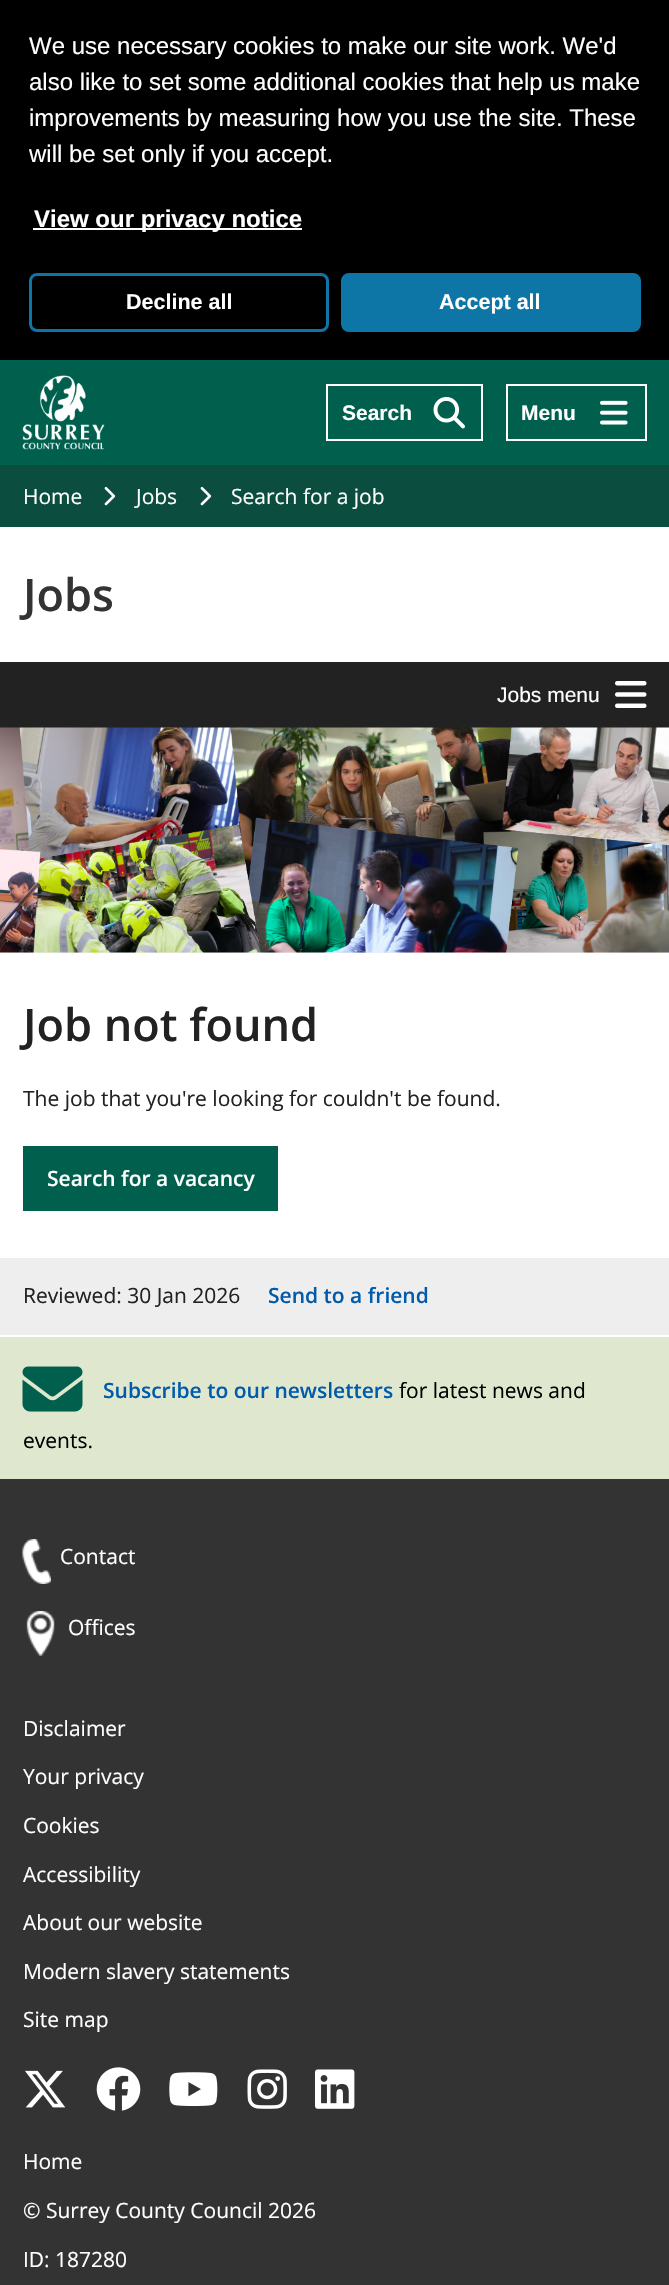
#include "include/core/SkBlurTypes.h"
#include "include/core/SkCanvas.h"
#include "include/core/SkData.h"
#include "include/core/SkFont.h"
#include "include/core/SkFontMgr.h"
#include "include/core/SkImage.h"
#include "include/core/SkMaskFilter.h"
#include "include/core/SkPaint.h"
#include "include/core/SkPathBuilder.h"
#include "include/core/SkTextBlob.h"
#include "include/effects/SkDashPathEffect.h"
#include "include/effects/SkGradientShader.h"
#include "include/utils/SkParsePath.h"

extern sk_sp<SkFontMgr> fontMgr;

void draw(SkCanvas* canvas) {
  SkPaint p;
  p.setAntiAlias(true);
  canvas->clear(SK_ColorWHITE);
  p.setColor(SK_ColorBLACK);
  canvas->drawRect(SkRect::MakeLTRB(0, 0, 669, 360), p);
  p.setColor(SK_ColorWHITE);
  canvas->drawRect(SkRect::MakeLTRB(33, 228, 302, 230), p);
  p.setStyle(SkPaint::kStroke_Style);
  p.setStrokeWidth(3);
  p.setColor(SkColorSetRGB(13, 118, 166));
  canvas->drawRoundRect(SkRect::MakeLTRB(30.5f, 274.5f, 327.5f, 330.5f), 6.5f, 6.5f, p);
  p.setStyle(SkPaint::kFill_Style);
  canvas->drawRoundRect(SkRect::MakeLTRB(342.5f, 274.5f, 639.5f, 330.5f), 6.5f, 6.5f, p);
  p.setStyle(SkPaint::kStroke_Style);
  canvas->drawRoundRect(SkRect::MakeLTRB(342.5f, 274.5f, 639.5f, 330.5f), 6.5f, 6.5f, p);
  p.setStyle(SkPaint::kFill_Style);
  p.setColor(SkColorSetRGB(0, 96, 77));
  canvas->drawRect(SkRect::MakeLTRB(0, 360, 669, 465), p);
  canvas->drawImageRect(SkImages::DeferredFromEncodedData(SkData::MakeFromFileName("images/1.png")), SkRect::MakeLTRB(22, 375, 105, 450), SkSamplingOptions());
  p.setStyle(SkPaint::kStroke_Style);
  p.setStrokeWidth(2);
  p.setColor(SK_ColorWHITE);
  canvas->drawRect(SkRect::MakeLTRB(327, 385, 482, 440), p);
  canvas->drawImageRect(SkImages::DeferredFromEncodedData(SkData::MakeFromFileName("images/2.png")), SkRect::MakeLTRB(433, 396, 465, 429), SkSamplingOptions());
  canvas->drawRect(SkRect::MakeLTRB(507, 385, 646, 440), p);
  canvas->drawImageRect(SkImages::DeferredFromEncodedData(SkData::MakeFromFileName("images/3.png")), SkRect::MakeLTRB(600, 400, 628, 425), SkSamplingOptions());
  p.setStyle(SkPaint::kFill_Style);
  p.setColor(SkColorSetRGB(11, 77, 63));
  canvas->drawRect(SkRect::MakeLTRB(0, 465, 669, 527), p);
  canvas->drawImageRect(SkImages::DeferredFromEncodedData(SkData::MakeFromFileName("images/4.png")), SkRect::MakeLTRB(104, 487, 116, 506), SkSamplingOptions());
  canvas->drawImageRect(SkImages::DeferredFromEncodedData(SkData::MakeFromFileName("images/4.png")), SkRect::MakeLTRB(200, 487, 212, 506), SkSamplingOptions());
  p.setColor(SkColorSetRGB(34, 34, 34));
  canvas->drawRect(SkRect::MakeLTRB(0, 662, 669, 728), p);
  canvas->drawImageRect(SkImages::DeferredFromEncodedData(SkData::MakeFromFileName("images/5.png")), SkRect::MakeLTRB(615, 681, 647, 708), SkSamplingOptions());
  p.setColor(SkColorSetRGB(238, 238, 238));
  canvas->drawRect(SkRect::MakeLTRB(0, 952, 669, 953), p);
  canvas->drawImageRect(SkImages::DeferredFromEncodedData(SkData::MakeFromFileName("images/6.png")), SkRect::MakeLTRB(0, 727, 669, 953), SkSamplingOptions());
  p.setColor(SkColorSetRGB(0, 96, 77));
  canvas->drawRect(SkRect::MakeLTRB(23, 1146, 278, 1211), p);
  p.setColor(SkColorSetRGB(238, 238, 238));
  canvas->drawRect(SkRect::MakeLTRB(0, 1258, 669, 1335), p);
  p.setColor(SkColorSetRGB(51, 51, 51));
  canvas->drawRect(SkRect::MakeLTRB(0, 1479, 669, 2285), p);
  p.setColor(SkColorSetRGB(224, 231, 207));
  canvas->drawRect(SkRect::MakeLTRB(0, 1337, 669, 1479), p);
  canvas->drawImageRect(SkImages::DeferredFromEncodedData(SkData::MakeFromFileName("images/7.png")), SkRect::MakeLTRB(22, 1366, 83, 1412), SkSamplingOptions());
  canvas->drawImageRect(SkImages::DeferredFromEncodedData(SkData::MakeFromFileName("images/8.png")), SkRect::MakeLTRB(22, 1539, 51, 1584), SkSamplingOptions());
  canvas->drawImageRect(SkImages::DeferredFromEncodedData(SkData::MakeFromFileName("images/9.png")), SkRect::MakeLTRB(26, 1611, 55, 1656), SkSamplingOptions());
  canvas->drawImageRect(SkImages::DeferredFromEncodedData(SkData::MakeFromFileName("images/10.png")), SkRect::MakeLTRB(25, 2070, 66, 2108), SkSamplingOptions());
  canvas->drawImageRect(SkImages::DeferredFromEncodedData(SkData::MakeFromFileName("images/11.png")), SkRect::MakeLTRB(96, 2067, 141, 2111), SkSamplingOptions());
  canvas->drawImageRect(SkImages::DeferredFromEncodedData(SkData::MakeFromFileName("images/12.png")), SkRect::MakeLTRB(169, 2072, 218, 2106), SkSamplingOptions());
  canvas->drawImageRect(SkImages::DeferredFromEncodedData(SkData::MakeFromFileName("images/13.png")), SkRect::MakeLTRB(247, 2069, 287, 2109), SkSamplingOptions());
  canvas->drawImageRect(SkImages::DeferredFromEncodedData(SkData::MakeFromFileName("images/14.png")), SkRect::MakeLTRB(315, 2069, 355, 2109), SkSamplingOptions());
  SkFont font1(fontMgr->matchFamilyStyle("Liberation Sans", SkFontStyle::Normal()), 24);
  font1.setSubpixel(true);
  p.setColor(SK_ColorWHITE);
  canvas->drawString("We use necessary cookies to make our site work. We'd", 29, 54, font1, p);
  canvas->drawString("also like to set some additional cookies that help us make", 29, 90, font1, p);
  canvas->drawString("improvements by measuring how you use the site. These", 29, 126, font1, p);
  canvas->drawString("will be set only if you accept.", 29, 162, font1, p);
  SkFont font2(fontMgr->matchFamilyStyle("Liberation Sans", SkFontStyle::Bold()), 24);
  font2.setSubpixel(true);
  canvas->drawString("View our privacy notice", 34, 227, font2, p);
  SkFont font3(fontMgr->matchFamilyStyle("Liberation Sans", SkFontStyle::Bold()), 21.5f);
  font3.setSubpixel(true);
  canvas->drawString("Decline all", 126, 309, font3, p);
  canvas->drawString("Accept all", 439, 309, font3, p);
  SkFont font4(fontMgr->matchFamilyStyle("Liberation Sans", SkFontStyle::Bold()), 21);
  font4.setSubpixel(true);
  canvas->drawString("Search", 342, 420, font4, p);
  canvas->drawString("Menu", 521, 420, font4, p);
  SkFont font5(fontMgr->matchFamilyStyle("Open Sans", SkFontStyle::Normal()), 21);
  font5.setSubpixel(true);
  canvas->drawString("Home", 23, 504, font5, p);
  canvas->drawString("Jobs", 136, 504, font5, p);
  canvas->drawString("Search for a job", 231, 504, font5, p);
  SkFont font6(fontMgr->matchFamilyStyle("Open Sans", SkFontStyle(600, SkFontStyle::kNormal_Width, SkFontStyle::kUpright_Slant)), 45);
  font6.setSubpixel(true);
  p.setColor(SkColorSetRGB(51, 51, 51));
  canvas->drawString("Jobs", 23, 611, font6, p);
  SkFont font7(fontMgr->matchFamilyStyle("Liberation Sans", SkFontStyle::Normal()), 21);
  font7.setSubpixel(true);
  p.setColor(SK_ColorWHITE);
  canvas->drawString("Jobs menu", 497, 702, font7, p);
  p.setColor(SkColorSetRGB(34, 34, 34));
  canvas->drawString("Job not found", 23, 1041, font6, p);
  canvas->drawString("The job that you're looking for couldn't be found.", 23, 1106, font5, p);
  SkFont font8(fontMgr->matchFamilyStyle("Open Sans", SkFontStyle(600, SkFontStyle::kNormal_Width, SkFontStyle::kUpright_Slant)), 21);
  font8.setSubpixel(true);
  p.setColor(SK_ColorWHITE);
  canvas->drawString("Search for a vacancy", 47, 1186, font8, p);
  p.setColor(SkColorSetRGB(34, 34, 34));
  canvas->drawString("Reviewed: 30 Jan 2026", 23, 1303, font5, p);
  p.setColor(SkColorSetRGB(0, 91, 171));
  canvas->drawString("Send to a friend", 268, 1303, font8, p);
  canvas->drawString("Subscribe to our newsletters", 103, 1398, font8, p);
  p.setColor(SK_ColorBLACK);
  canvas->drawString("for latest news and", 399, 1398, font5, p);
  canvas->drawString("events.", 23, 1448, font5, p);
  p.setColor(SK_ColorWHITE);
  canvas->drawString("Contact", 60, 1564, font5, p);
  canvas->drawString("Offices", 68, 1635, font5, p);
  canvas->drawString("Disclaimer", 23, 1736, font5, p);
  canvas->drawString("Your privacy", 23, 1784, font5, p);
  canvas->drawString("Cookies", 23, 1833, font5, p);
  canvas->drawString("Accessibility", 23, 1882, font5, p);
  canvas->drawString("About our website", 23, 1930, font5, p);
  canvas->drawString("Modern slavery statements", 23, 1979, font5, p);
  canvas->drawString("Site map", 23, 2027, font5, p);
  canvas->drawString("Home", 23, 2169, font5, p);
  canvas->drawString("© Surrey County Council 2026", 23, 2218, font5, p);
  canvas->drawString("ID: 187280", 23, 2267, font5, p);
}
